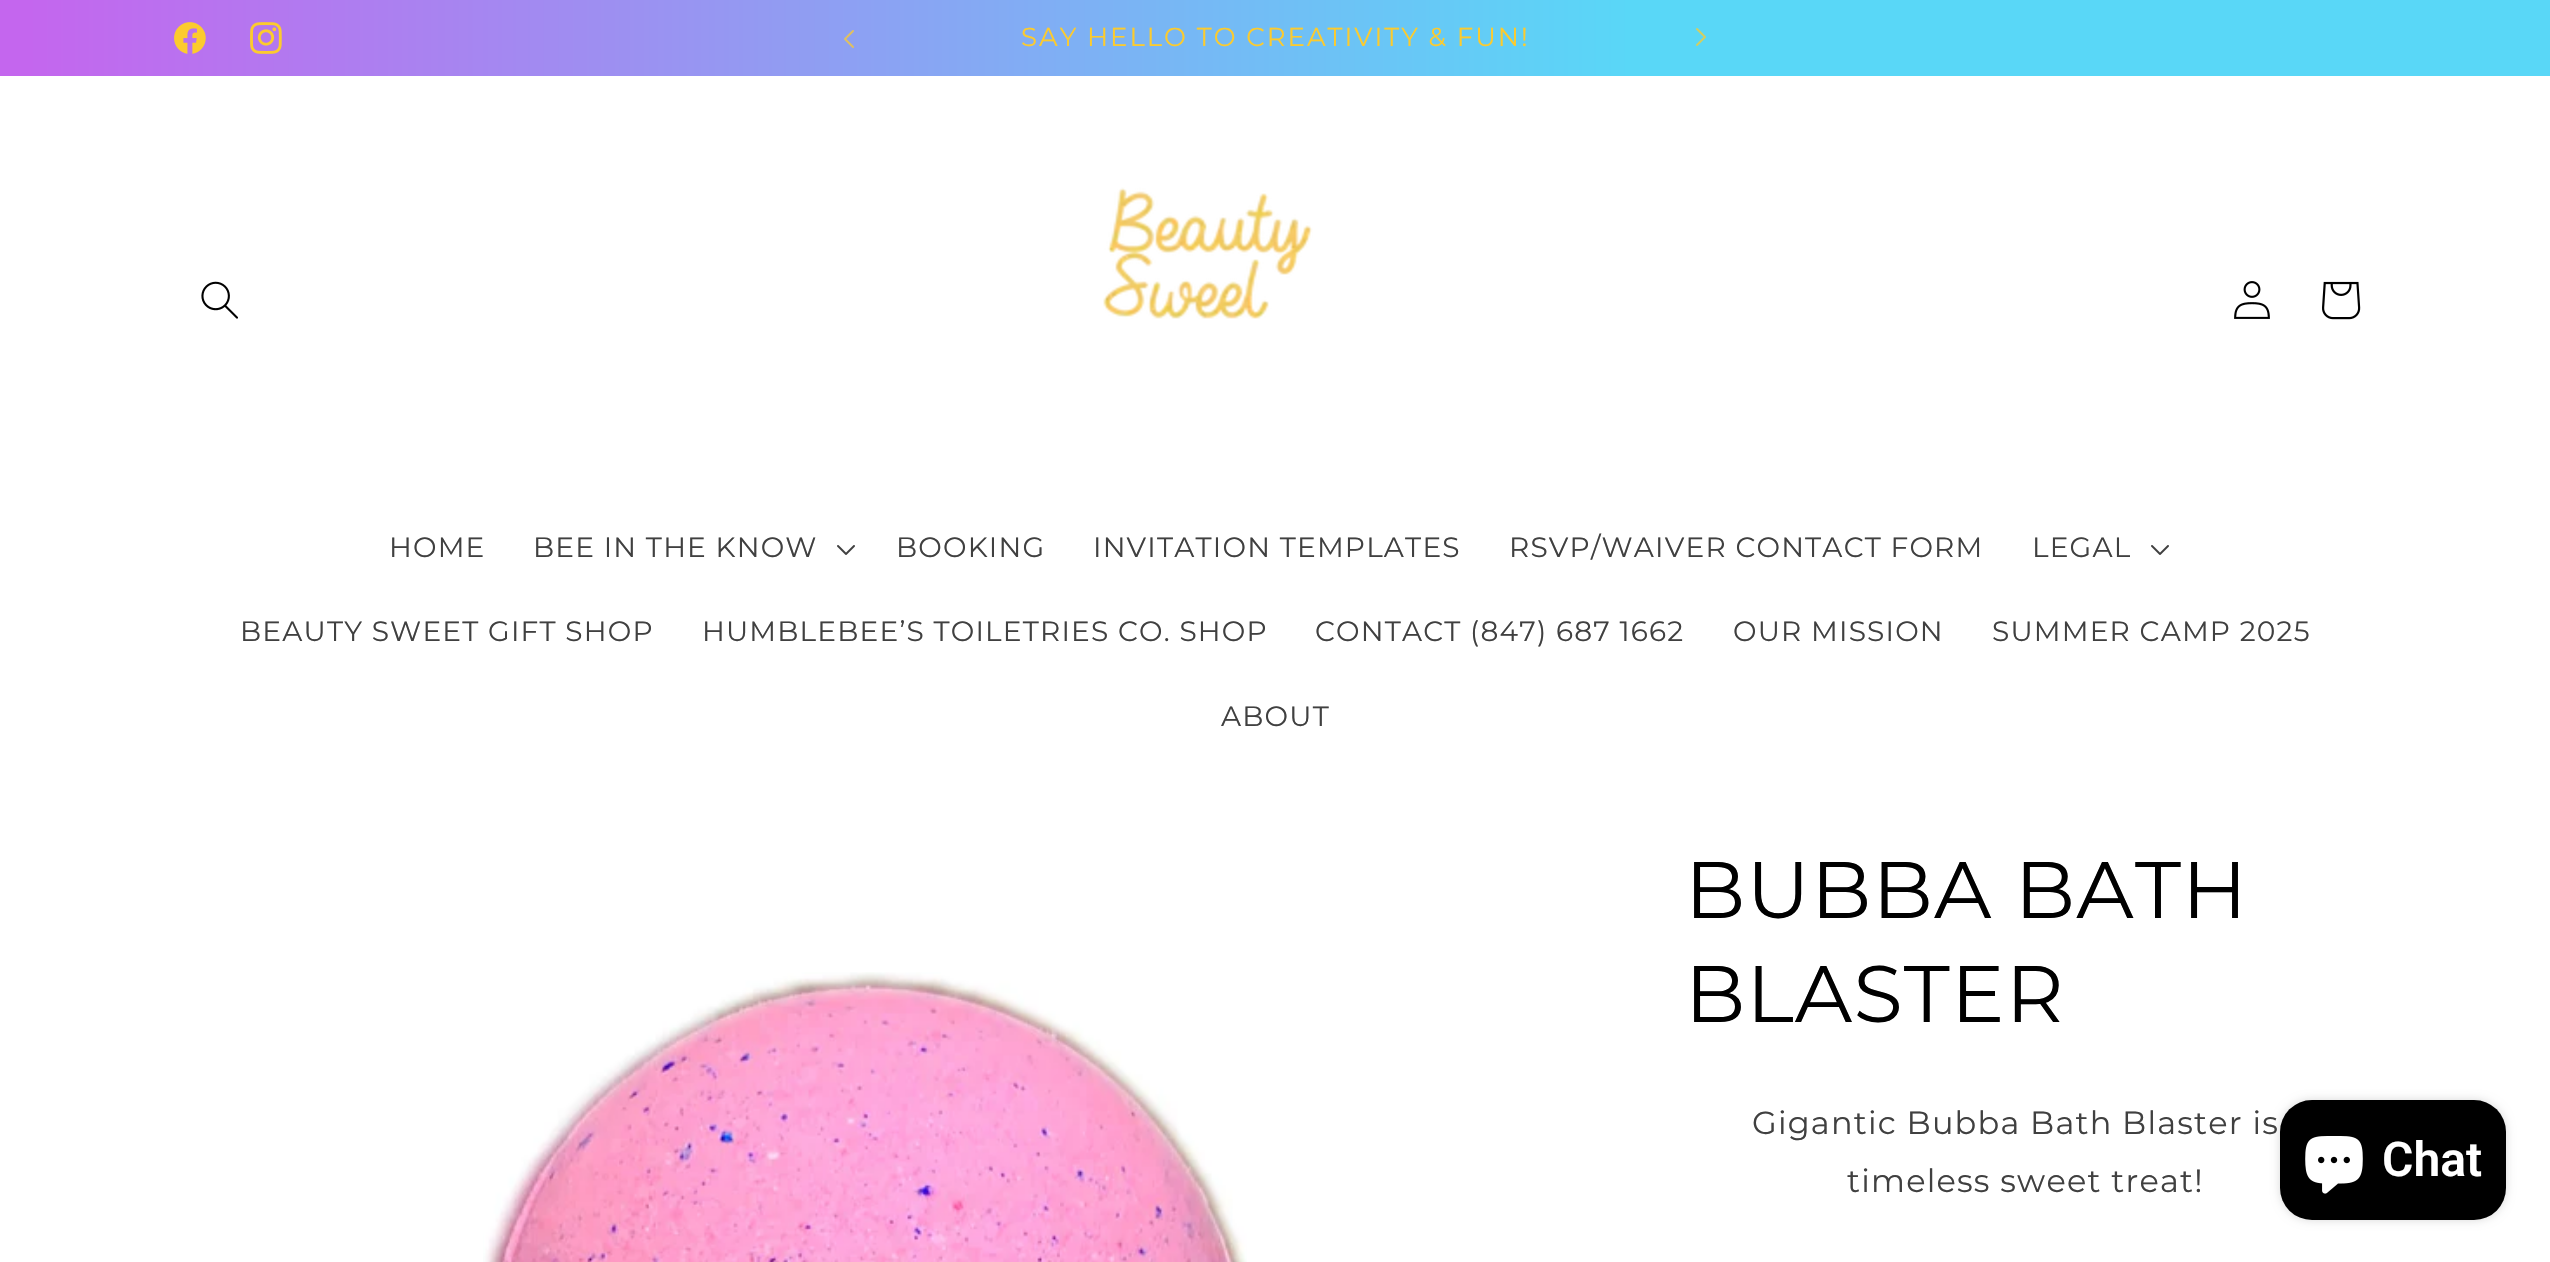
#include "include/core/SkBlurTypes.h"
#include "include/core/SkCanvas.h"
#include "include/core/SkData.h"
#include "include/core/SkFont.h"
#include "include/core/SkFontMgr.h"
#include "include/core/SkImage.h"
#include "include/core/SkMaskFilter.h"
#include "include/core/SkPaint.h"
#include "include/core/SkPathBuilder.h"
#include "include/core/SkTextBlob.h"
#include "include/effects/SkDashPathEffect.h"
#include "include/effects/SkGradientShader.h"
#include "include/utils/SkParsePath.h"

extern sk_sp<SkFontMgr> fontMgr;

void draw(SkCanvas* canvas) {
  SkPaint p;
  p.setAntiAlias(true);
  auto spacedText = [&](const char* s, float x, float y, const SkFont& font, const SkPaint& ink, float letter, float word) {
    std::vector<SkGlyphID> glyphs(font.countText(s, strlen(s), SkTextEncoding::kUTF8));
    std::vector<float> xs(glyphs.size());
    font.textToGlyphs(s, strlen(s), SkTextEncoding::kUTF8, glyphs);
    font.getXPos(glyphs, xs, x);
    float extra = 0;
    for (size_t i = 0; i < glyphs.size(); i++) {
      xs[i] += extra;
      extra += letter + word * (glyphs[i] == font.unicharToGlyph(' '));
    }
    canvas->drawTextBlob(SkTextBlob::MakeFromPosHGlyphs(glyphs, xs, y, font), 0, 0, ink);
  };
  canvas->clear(SK_ColorWHITE);
  {
    const SkColor colors[] = {SkColorSetRGB(196, 102, 238), SkColorSetRGB(89, 215, 247)};
    const float stops[] = {0.01f, 0.64f};
    const SkPoint ends[] = {{0, 631}, {2550, 631}};
    p.setShader(SkGradientShader::MakeLinear(ends, colors, stops, 2, SkTileMode::kClamp));
    p.setAlpha(255);
  }
  canvas->drawRect(SkRect::MakeLTRB(0, 0, 2550, 76), p);
  canvas->drawImageRect(SkImages::DeferredFromEncodedData(SkData::MakeFromFileName("images/1.png")), SkRect::MakeLTRB(174, 22, 206, 54), SkSamplingOptions());
  canvas->drawImageRect(SkImages::DeferredFromEncodedData(SkData::MakeFromFileName("images/2.png")), SkRect::MakeLTRB(250, 22, 282, 54), SkSamplingOptions());
  canvas->drawImageRect(SkImages::DeferredFromEncodedData(SkData::MakeFromFileName("images/3.png")), SkRect::MakeLTRB(844, 30, 854, 48), SkSamplingOptions());
  canvas->drawImageRect(SkImages::DeferredFromEncodedData(SkData::MakeFromFileName("images/4.png")), SkRect::MakeLTRB(1696, 28, 1706, 46), SkSamplingOptions());
  canvas->drawImageRect(SkImages::DeferredFromEncodedData(SkData::MakeFromFileName("images/5.png")), SkRect::MakeLTRB(201, 281, 238, 319), SkSamplingOptions());
  canvas->drawImageRect(SkImages::DeferredFromEncodedData(SkData::MakeFromFileName("images/6.png")), SkRect::MakeLTRB(1103, 187, 1313, 319), SkSamplingOptions());
  canvas->drawImageRect(SkImages::DeferredFromEncodedData(SkData::MakeFromFileName("images/7.png")), SkRect::MakeLTRB(2234, 281, 2270, 319), SkSamplingOptions());
  canvas->drawImageRect(SkImages::DeferredFromEncodedData(SkData::MakeFromFileName("images/8.png")), SkRect::MakeLTRB(2322, 281, 2361, 320), SkSamplingOptions());
  canvas->drawImageRect(SkImages::DeferredFromEncodedData(SkData::MakeFromFileName("images/9.png")), SkRect::MakeLTRB(837, 545, 855, 555), SkSamplingOptions());
  canvas->drawImageRect(SkImages::DeferredFromEncodedData(SkData::MakeFromFileName("images/9.png")), SkRect::MakeLTRB(2151, 545, 2169, 555), SkSamplingOptions());
  canvas->drawImageRect(SkImages::DeferredFromEncodedData(SkData::MakeFromFileName("images/10.png")), SkRect::MakeLTRB(483, 972, 1247, 1262), SkSamplingOptions());
  p.setShader(nullptr);
  p.setColor(SkColorSetARGB(38, 0, 0, 0));
  p.setMaskFilter(SkMaskFilter::MakeBlur(kNormal_SkBlurStyle, 5));
  canvas->drawRoundRect(SkRect::MakeLTRB(2280, 1100, 2506, 1220), 32, 32, p);
  p.setMaskFilter(nullptr);
  p.setColor(SK_ColorBLACK);
  canvas->drawRoundRect(SkRect::MakeLTRB(2280, 1100, 2506, 1220), 32, 32, p);
  canvas->drawImageRect(SkImages::DeferredFromEncodedData(SkData::MakeFromFileName("images/11.png")), SkRect::MakeLTRB(2305, 1136, 2363, 1194), SkSamplingOptions());
  SkFont font1(fontMgr->matchFamilyStyle("Montserrat", SkFontStyle::Normal()), 26);
  font1.setSubpixel(true);
  p.setColor(SkColorSetRGB(252, 203, 46));
  spacedText("SAY HELLO TO CREATIVITY & FUN!", 1021, 46, font1, p, 2, 0);
  SkFont font2(fontMgr->matchFamilyStyle("Montserrat", SkFontStyle::Normal()), 28);
  font2.setSubpixel(true);
  p.setColor(SkColorSetRGB(64, 64, 64));
  spacedText("HOME", 389, 557, font2, p, 1.2f, 0);
  spacedText("BEE IN THE KNOW", 533, 557, font2, p, 1.2f, 0);
  spacedText("BOOKING", 896, 557, font2, p, 1.2f, 0);
  spacedText("INVITATION TEMPLATES", 1093, 557, font2, p, 1.2f, 0);
  spacedText("RSVP/WAIVER CONTACT FORM", 1509, 557, font2, p, 1.2f, 0);
  spacedText("LEGAL", 2032, 557, font2, p, 1.2f, 0);
  spacedText("BEAUTY SWEET GIFT SHOP", 240, 641, font2, p, 1.2f, 0);
  spacedText("HUMBLEBEE’S TOILETRIES CO. SHOP", 702, 641, font2, p, 1.2f, 0);
  spacedText("CONTACT (847) 687 1662", 1315, 641, font2, p, 1.2f, 0);
  spacedText("OUR MISSION", 1733, 641, font2, p, 1.2f, 0);
  spacedText("SUMMER CAMP 2025", 1992, 641, font2, p, 1.2f, 0);
  spacedText("ABOUT", 1221, 726, font2, p, 1.2f, 0);
  SkFont font3(fontMgr->matchFamilyStyle("Montserrat", SkFontStyle::Normal()), 80);
  font3.setSubpixel(true);
  p.setColor(SK_ColorBLACK);
  spacedText("BUBBA BATH", 1685, 918, font3, p, 1.2f, 0);
  spacedText("BLASTER", 1685, 1022, font3, p, 1.2f, 0);
  SkFont font4(fontMgr->matchFamilyStyle("Montserrat", SkFontStyle::Normal()), 32);
  font4.setSubpixel(true);
  p.setColor(SkColorSetRGB(64, 64, 64));
  spacedText("Gigantic Bubba Bath Blaster is", 1752, 1134, font4, p, 1.2f, 0);
  spacedText("timeless sweet treat!", 1847, 1192, font4, p, 1.2f, 0);
  SkFont font5(fontMgr->matchFamilyStyle("Roboto", SkFontStyle(600, SkFontStyle::kNormal_Width, SkFontStyle::kUpright_Slant)), 48);
  font5.setSubpixel(true);
  p.setColor(SK_ColorWHITE);
  canvas->drawString("Chat", 2382, 1176, font5, p);
}
